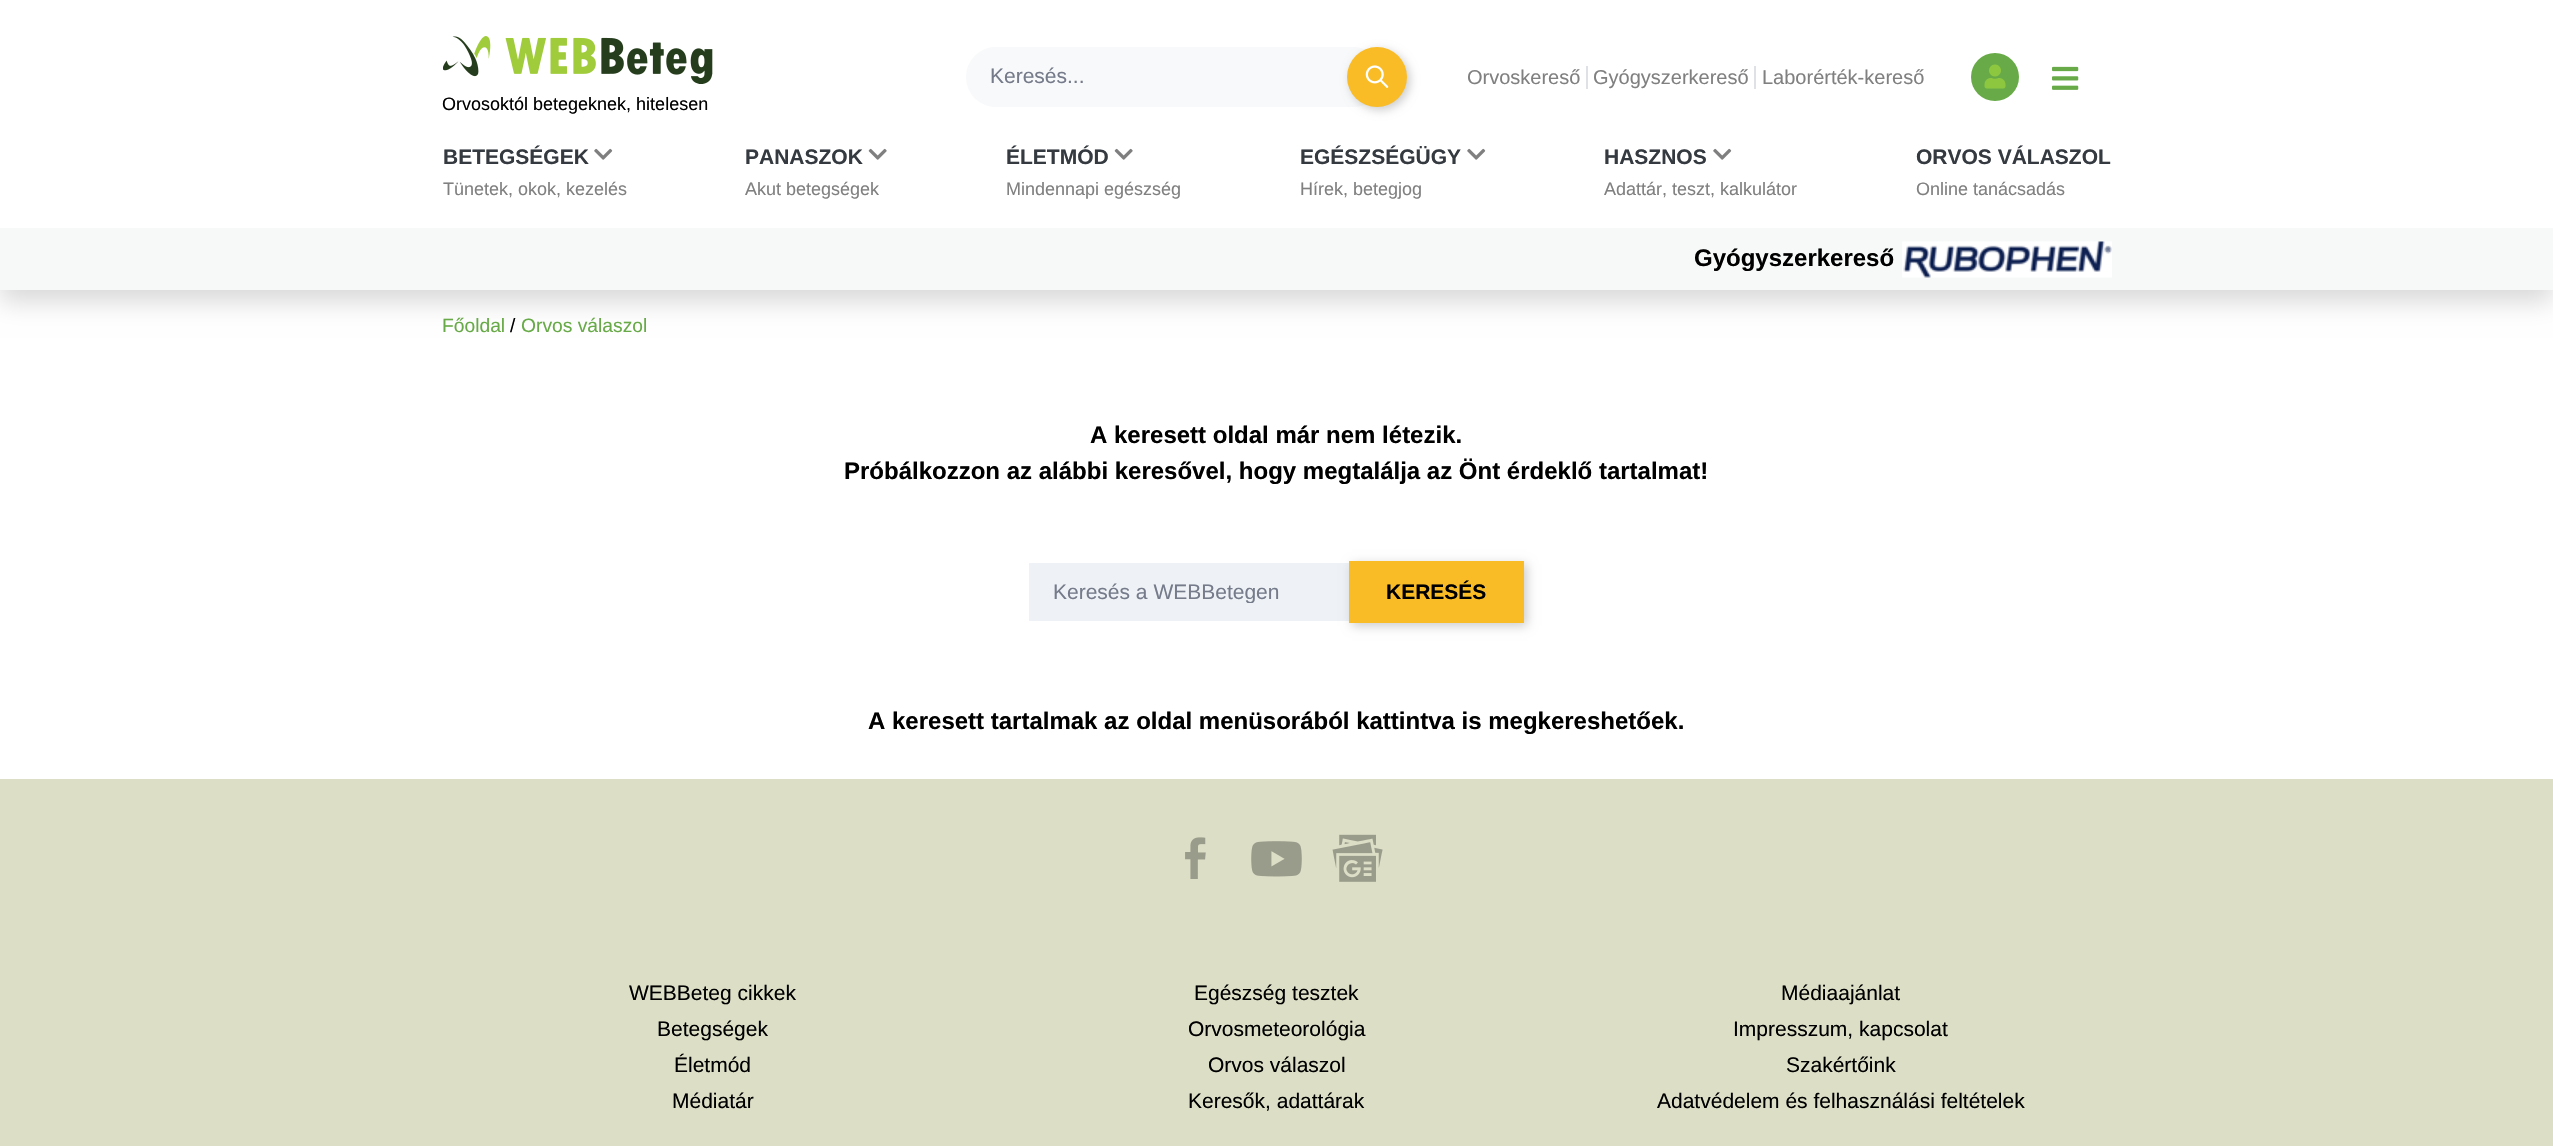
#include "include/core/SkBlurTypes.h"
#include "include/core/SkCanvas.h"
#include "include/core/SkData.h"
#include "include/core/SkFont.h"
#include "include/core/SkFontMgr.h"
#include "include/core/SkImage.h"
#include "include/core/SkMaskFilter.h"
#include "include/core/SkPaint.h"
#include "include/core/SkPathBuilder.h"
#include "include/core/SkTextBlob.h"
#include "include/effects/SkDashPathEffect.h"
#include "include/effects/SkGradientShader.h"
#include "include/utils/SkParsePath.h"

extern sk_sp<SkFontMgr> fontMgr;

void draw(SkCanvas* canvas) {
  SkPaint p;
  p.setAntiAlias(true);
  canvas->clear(SK_ColorWHITE);
  p.setColor(SkColorSetARGB(38, 0, 0, 0));
  p.setMaskFilter(SkMaskFilter::MakeBlur(kNormal_SkBlurStyle, 12));
  canvas->drawRect(SkRect::MakeLTRB(0, 12, 2553, 302), p);
  p.setMaskFilter(nullptr);
  p.setColor(SK_ColorWHITE);
  canvas->drawRect(SkRect::MakeLTRB(0, 0, 2553, 228), p);
  p.setColor(SkColorSetRGB(248, 249, 250));
  canvas->drawRoundRect(SkRect::MakeLTRB(966, 47, 1383, 107), 30, 30, p);
  p.setColor(SkColorSetARGB(51, 0, 0, 0));
  p.setMaskFilter(SkMaskFilter::MakeBlur(kNormal_SkBlurStyle, 5));
  canvas->drawRoundRect(SkRect::MakeLTRB(1350, 50, 1410, 110), 30, 30, p);
  p.setMaskFilter(nullptr);
  p.setColor(SkColorSetRGB(249, 188, 39));
  canvas->drawCircle(1377, 77, 30, p);
  canvas->drawImageRect(SkImages::DeferredFromEncodedData(SkData::MakeFromFileName("images/1.png")), SkRect::MakeLTRB(1365, 65, 1389, 88), SkSamplingOptions());
  p.setColor(SkColorSetRGB(222, 226, 230));
  canvas->drawRect(SkRect::MakeLTRB(1586, 66, 1588, 89), p);
  canvas->drawRect(SkRect::MakeLTRB(1754, 66, 1756, 89), p);
  p.setColor(SkColorSetRGB(103, 170, 71));
  canvas->drawCircle(1995, 77, 24, p);
  canvas->drawImageRect(SkImages::DeferredFromEncodedData(SkData::MakeFromFileName("images/2.png")), SkRect::MakeLTRB(1984, 64, 2006, 89), SkSamplingOptions());
  canvas->drawImageRect(SkImages::DeferredFromEncodedData(SkData::MakeFromFileName("images/3.png")), SkRect::MakeLTRB(2052, 66, 2079, 90), SkSamplingOptions());
  canvas->drawImageRect(SkImages::DeferredFromEncodedData(SkData::MakeFromFileName("images/4.png")), SkRect::MakeLTRB(443, 36, 713, 84), SkSamplingOptions());
  canvas->drawImageRect(SkImages::DeferredFromEncodedData(SkData::MakeFromFileName("images/5.png")), SkRect::MakeLTRB(594, 148, 613, 160), SkSamplingOptions());
  canvas->drawImageRect(SkImages::DeferredFromEncodedData(SkData::MakeFromFileName("images/6.png")), SkRect::MakeLTRB(868, 148, 887, 160), SkSamplingOptions());
  canvas->drawImageRect(SkImages::DeferredFromEncodedData(SkData::MakeFromFileName("images/6.png")), SkRect::MakeLTRB(1114, 148, 1133, 160), SkSamplingOptions());
  canvas->drawImageRect(SkImages::DeferredFromEncodedData(SkData::MakeFromFileName("images/5.png")), SkRect::MakeLTRB(1467, 148, 1486, 160), SkSamplingOptions());
  canvas->drawImageRect(SkImages::DeferredFromEncodedData(SkData::MakeFromFileName("images/5.png")), SkRect::MakeLTRB(1713, 148, 1732, 160), SkSamplingOptions());
  p.setColor(SkColorSetRGB(247, 249, 249));
  canvas->drawRect(SkRect::MakeLTRB(0, 228, 2553, 290), p);
  canvas->drawImageRect(SkImages::DeferredFromEncodedData(SkData::MakeFromFileName("images/7.png")), SkRect::MakeLTRB(1902, 241, 2112, 278), SkSamplingOptions());
  p.setColor(SkColorSetRGB(238, 242, 246));
  canvas->drawRect(SkRect::MakeLTRB(1029, 563, 1349, 621), p);
  p.setColor(SkColorSetARGB(51, 0, 0, 0));
  p.setMaskFilter(SkMaskFilter::MakeBlur(kNormal_SkBlurStyle, 5));
  canvas->drawRect(SkRect::MakeLTRB(1352, 564, 1527, 626), p);
  p.setMaskFilter(nullptr);
  p.setColor(SkColorSetRGB(249, 188, 39));
  canvas->drawRect(SkRect::MakeLTRB(1349, 561, 1524, 623), p);
  p.setColor(SkColorSetRGB(220, 222, 198));
  canvas->drawRect(SkRect::MakeLTRB(0, 779, 2553, 1146), p);
  canvas->drawImageRect(SkImages::DeferredFromEncodedData(SkData::MakeFromFileName("images/8.png")), SkRect::MakeLTRB(1185, 837, 1206, 879), SkSamplingOptions());
  canvas->drawImageRect(SkImages::DeferredFromEncodedData(SkData::MakeFromFileName("images/9.png")), SkRect::MakeLTRB(1251, 841, 1302, 877), SkSamplingOptions());
  canvas->drawImageRect(SkImages::DeferredFromEncodedData(SkData::MakeFromFileName("images/10.png")), SkRect::MakeLTRB(1332, 834, 1383, 882), SkSamplingOptions());
  SkFont font1(fontMgr->matchFamilyStyle("Liberation Sans", SkFontStyle::Normal()), 21);
  font1.setSubpixel(true);
  p.setColor(SkColorSetRGB(117, 123, 138));
  canvas->drawString("Keresés...", 990, 83, font1, p);
  SkFont font2(fontMgr->matchFamilyStyle("Liberation Sans", SkFontStyle::Normal()), 20);
  font2.setSubpixel(true);
  p.setColor(SkColorSetRGB(128, 128, 128));
  canvas->drawString("Orvoskereső", 1467, 84, font2, p);
  canvas->drawString("Gyógyszerkereső", 1593, 84, font2, p);
  canvas->drawString("Laborérték-kereső", 1762, 84, font2, p);
  SkFont font3(fontMgr->matchFamilyStyle("Liberation Sans", SkFontStyle::Normal()), 18);
  font3.setSubpixel(true);
  p.setColor(SK_ColorBLACK);
  canvas->drawString("Orvosoktól betegeknek, hitelesen", 442, 110, font3, p);
  SkFont font4(fontMgr->matchFamilyStyle("Liberation Sans", SkFontStyle::Bold()), 21);
  font4.setSubpixel(true);
  p.setColor(SkColorSetRGB(52, 58, 64));
  canvas->drawString("BETEGSÉGEK", 443, 164, font4, p);
  p.setColor(SkColorSetRGB(128, 128, 128));
  canvas->drawString("Tünetek, okok, kezelés", 443, 195, font3, p);
  p.setColor(SkColorSetRGB(52, 58, 64));
  canvas->drawString("PANASZOK", 745, 164, font4, p);
  p.setColor(SkColorSetRGB(128, 128, 128));
  canvas->drawString("Akut betegségek", 745, 195, font3, p);
  p.setColor(SkColorSetRGB(52, 58, 64));
  canvas->drawString("ÉLETMÓD", 1006, 164, font4, p);
  p.setColor(SkColorSetRGB(128, 128, 128));
  canvas->drawString("Mindennapi egészség", 1006, 195, font3, p);
  p.setColor(SkColorSetRGB(52, 58, 64));
  canvas->drawString("EGÉSZSÉGÜGY", 1300, 164, font4, p);
  p.setColor(SkColorSetRGB(128, 128, 128));
  canvas->drawString("Hírek, betegjog", 1300, 195, font3, p);
  p.setColor(SkColorSetRGB(52, 58, 64));
  canvas->drawString("HASZNOS", 1604, 164, font4, p);
  p.setColor(SkColorSetRGB(128, 128, 128));
  canvas->drawString("Adattár, teszt, kalkulátor", 1604, 195, font3, p);
  p.setColor(SkColorSetRGB(52, 58, 64));
  canvas->drawString("ORVOS VÁLASZOL", 1916, 164, font4, p);
  p.setColor(SkColorSetRGB(128, 128, 128));
  canvas->drawString("Online tanácsadás", 1916, 195, font3, p);
  SkFont font5(fontMgr->matchFamilyStyle("Liberation Sans", SkFontStyle::Bold()), 24);
  font5.setSubpixel(true);
  p.setColor(SK_ColorBLACK);
  canvas->drawString("Gyógyszerkereső", 1694, 266, font5, p);
  SkFont font6(fontMgr->matchFamilyStyle("Liberation Sans", SkFontStyle::Normal()), 19.25f);
  font6.setSubpixel(true);
  p.setColor(SkColorSetRGB(103, 170, 71));
  canvas->drawString("Főoldal", 442, 332, font6, p);
  p.setColor(SK_ColorBLACK);
  canvas->drawString("/", 510, 332, font6, p);
  p.setColor(SkColorSetRGB(103, 170, 71));
  canvas->drawString("Orvos válaszol", 521, 332, font6, p);
  p.setColor(SK_ColorBLACK);
  canvas->drawString("A keresett oldal már nem létezik.", 1090, 443, font5, p);
  canvas->drawString("Próbálkozzon az alábbi keresővel, hogy megtalálja az Önt érdeklő tartalmat!", 844, 479, font5, p);
  canvas->save();
  canvas->clipRect(SkRect::MakeLTRB(1053, 579, 1325, 603));
  p.setColor(SkColorSetRGB(117, 123, 138));
  canvas->drawString("Keresés a WEBBetegen", 1053, 599, font1, p);
  canvas->restore();
  p.setColor(SK_ColorBLACK);
  canvas->drawString("KERESÉS", 1386, 599, font4, p);
  canvas->drawString("A keresett tartalmak az oldal menüsorából kattintva is megkereshetőek.", 868, 729, font5, p);
  canvas->drawString("WEBBeteg cikkek", 629, 1000, font1, p);
  canvas->drawString("Betegségek", 657, 1036, font1, p);
  canvas->drawString("Életmód", 674, 1072, font1, p);
  canvas->drawString("Médiatár", 672, 1108, font1, p);
  canvas->drawString("Egészség tesztek", 1194, 1000, font1, p);
  canvas->drawString("Orvosmeteorológia", 1188, 1036, font1, p);
  canvas->drawString("Orvos válaszol", 1208, 1072, font1, p);
  canvas->drawString("Keresők, adattárak", 1188, 1108, font1, p);
  canvas->drawString("Médiaajánlat", 1781, 1000, font1, p);
  canvas->drawString("Impresszum, kapcsolat", 1733, 1036, font1, p);
  canvas->drawString("Szakértőink", 1786, 1072, font1, p);
  canvas->drawString("Adatvédelem és felhasználási feltételek", 1657, 1108, font1, p);
}
